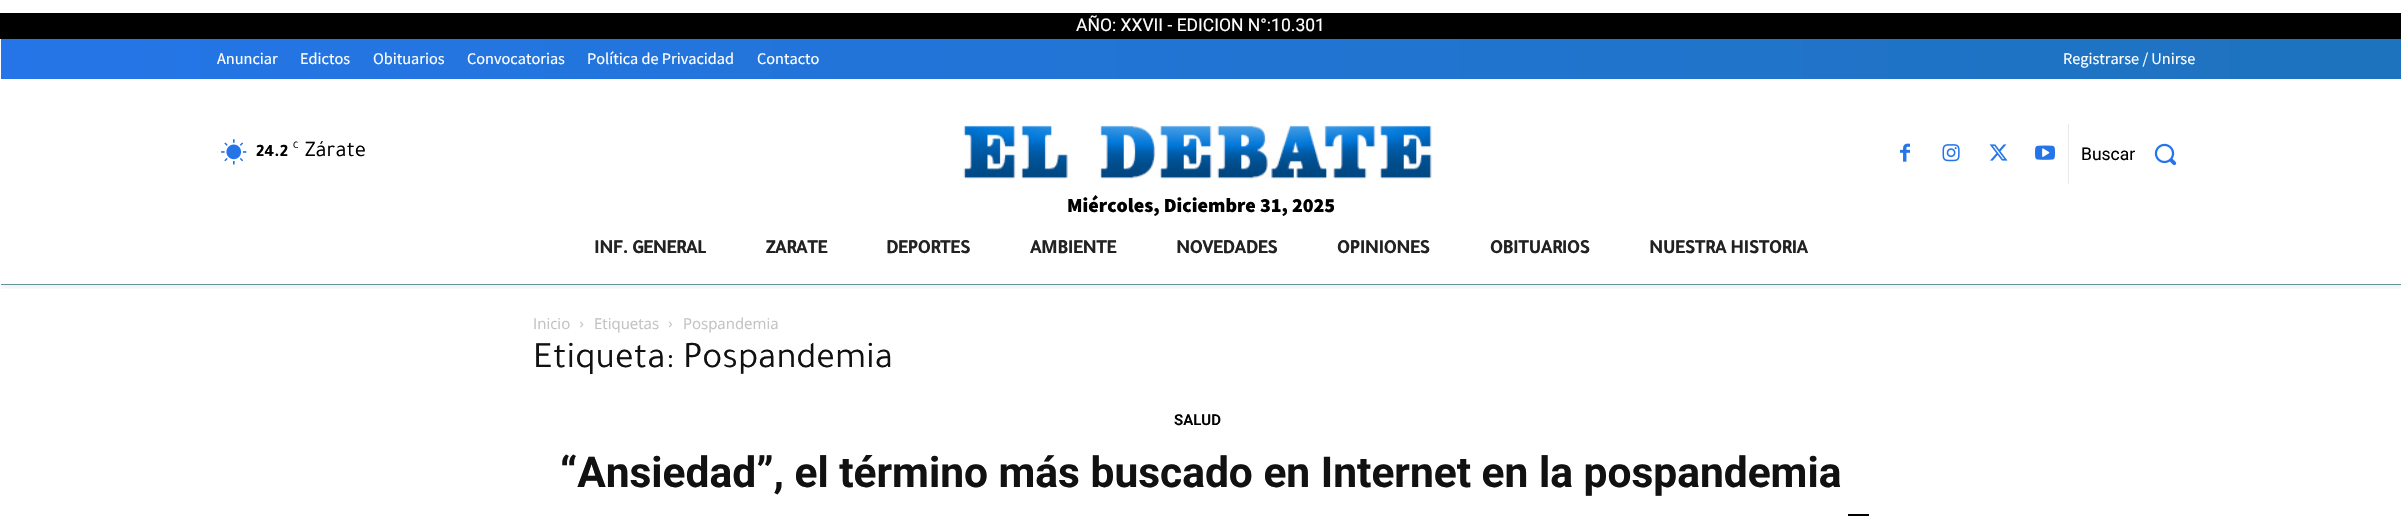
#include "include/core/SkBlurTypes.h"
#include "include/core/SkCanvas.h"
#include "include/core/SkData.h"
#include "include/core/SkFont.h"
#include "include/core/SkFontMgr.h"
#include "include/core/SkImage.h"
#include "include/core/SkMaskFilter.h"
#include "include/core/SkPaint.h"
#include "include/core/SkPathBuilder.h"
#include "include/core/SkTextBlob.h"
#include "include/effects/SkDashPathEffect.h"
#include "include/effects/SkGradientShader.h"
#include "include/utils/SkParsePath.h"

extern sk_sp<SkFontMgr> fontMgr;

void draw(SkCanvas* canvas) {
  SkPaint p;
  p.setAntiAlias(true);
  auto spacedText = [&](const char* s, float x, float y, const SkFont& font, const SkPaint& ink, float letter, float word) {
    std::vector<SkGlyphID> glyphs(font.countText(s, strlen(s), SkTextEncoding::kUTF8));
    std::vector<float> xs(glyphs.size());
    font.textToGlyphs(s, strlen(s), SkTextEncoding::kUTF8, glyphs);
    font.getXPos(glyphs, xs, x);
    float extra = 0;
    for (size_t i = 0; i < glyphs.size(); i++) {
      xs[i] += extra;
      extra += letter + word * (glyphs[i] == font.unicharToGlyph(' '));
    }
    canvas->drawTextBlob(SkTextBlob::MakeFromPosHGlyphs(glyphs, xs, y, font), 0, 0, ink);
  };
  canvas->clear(SK_ColorWHITE);
  p.setColor(SK_ColorBLACK);
  canvas->drawRect(SkRect::MakeLTRB(0, 13, 2401, 39), p);
  {
    const SkColor colors[] = {SkColorSetRGB(30, 115, 190), SkColorSetRGB(37, 117, 232)};
    const float stops[] = {0, 1};
    const SkPoint ends[] = {{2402, 59}, {0.6f, 59}};
    p.setShader(SkGradientShader::MakeLinear(ends, colors, stops, 2, SkTileMode::kClamp));
    p.setAlpha(255);
  }
  canvas->drawRect(SkRect::MakeLTRB(1, 39, 2401, 79), p);
  canvas->drawImageRect(SkImages::DeferredFromEncodedData(SkData::MakeFromFileName("images/1.png")), SkRect::MakeLTRB(221, 139, 247, 165), SkSamplingOptions());
  canvas->drawImageRect(SkImages::DeferredFromEncodedData(SkData::MakeFromFileName("images/2.png")), SkRect::MakeLTRB(963, 125, 1432, 179), SkSamplingOptions());
  canvas->drawImageRect(SkImages::DeferredFromEncodedData(SkData::MakeFromFileName("images/3.png")), SkRect::MakeLTRB(1900, 143, 1910, 162), SkSamplingOptions());
  canvas->drawImageRect(SkImages::DeferredFromEncodedData(SkData::MakeFromFileName("images/4.png")), SkRect::MakeLTRB(1942, 144, 1960, 162), SkSamplingOptions());
  canvas->drawImageRect(SkImages::DeferredFromEncodedData(SkData::MakeFromFileName("images/5.png")), SkRect::MakeLTRB(1989, 144, 2008, 161), SkSamplingOptions());
  canvas->drawImageRect(SkImages::DeferredFromEncodedData(SkData::MakeFromFileName("images/6.png")), SkRect::MakeLTRB(2035, 145, 2055, 160), SkSamplingOptions());
  p.setShader(nullptr);
  p.setColor(SkColorSetRGB(102, 146, 153));
  canvas->drawRect(SkRect::MakeLTRB(1, 284, 2401, 285), p);
  canvas->save();
  canvas->clipRect(SkRect::MakeLTRB(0, 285, 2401, 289));
  p.setColor(SkColorSetARGB(15, 0, 0, 0));
  p.setMaskFilter(SkMaskFilter::MakeBlur(kNormal_SkBlurStyle, 2.5f));
  canvas->drawRect(SkRect::MakeLTRB(1, 191, 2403, 288), p);
  p.setMaskFilter(nullptr);
  canvas->restore();
  p.setColor(SkColorSetRGB(234, 234, 234));
  canvas->drawRect(SkRect::MakeLTRB(2068, 124, 2069, 184), p);
  canvas->drawImageRect(SkImages::DeferredFromEncodedData(SkData::MakeFromFileName("images/7.png")), SkRect::MakeLTRB(2154, 143, 2177, 166), SkSamplingOptions());
  canvas->drawImageRect(SkImages::DeferredFromEncodedData(SkData::MakeFromFileName("images/8.png")), SkRect::MakeLTRB(580, 321, 584, 328), SkSamplingOptions());
  canvas->drawImageRect(SkImages::DeferredFromEncodedData(SkData::MakeFromFileName("images/9.png")), SkRect::MakeLTRB(668, 321, 672, 328), SkSamplingOptions());
  p.setColor(SK_ColorBLACK);
  canvas->drawRect(SkRect::MakeLTRB(1848, 514, 1869, 516), p);
  SkFont font1(fontMgr->matchFamilyStyle("Roboto", SkFontStyle::Normal()), 17.5f);
  font1.setSubpixel(true);
  p.setColor(SK_ColorWHITE);
  canvas->drawString("AÑO: XXVII - EDICION N°:10.301", 1076, 31, font1, p);
  SkFont font2(fontMgr->matchFamilyStyle("Source Sans Pro", SkFontStyle::Normal()), 16.25f);
  font2.setSubpixel(true);
  canvas->drawString("Anunciar", 217, 64, font2, p);
  canvas->drawString("Edictos", 300, 64, font2, p);
  canvas->drawString("Obituarios", 373, 64, font2, p);
  canvas->drawString("Convocatorias", 467, 64, font2, p);
  canvas->drawString("Política de Privacidad", 587, 64, font2, p);
  canvas->drawString("Contacto", 757, 64, font2, p);
  canvas->drawString("Registrarse / Unirse", 2063, 64, font2, p);
  SkFont font3(fontMgr->matchFamilyStyle("Tajawal", SkFontStyle::Bold()), 17.5f);
  font3.setSubpixel(true);
  p.setColor(SK_ColorBLACK);
  canvas->drawString("24.2", 256, 156, font3, p);
  SkFont font4(fontMgr->matchFamilyStyle("Tajawal", SkFontStyle::Normal()), 10);
  font4.setSubpixel(true);
  canvas->drawString("C", 293, 148, font4, p);
  SkFont font5(fontMgr->matchFamilyStyle("Tajawal", SkFontStyle::Normal()), 22.5f);
  font5.setSubpixel(true);
  canvas->drawString("Zárate", 305, 156, font5, p);
  canvas->drawString("Buscar", 2081, 160, font1, p);
  SkFont font6(fontMgr->matchFamilyStyle("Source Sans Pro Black", SkFontStyle(900, SkFontStyle::kNormal_Width, SkFontStyle::kUpright_Slant)), 20);
  font6.setSubpixel(true);
  canvas->drawString("Miércoles, Diciembre 31, 2025", 1067, 212, font6, p);
  SkFont font7(fontMgr->matchFamilyStyle("Tajawal", SkFontStyle::Bold()), 20);
  font7.setSubpixel(true);
  p.setColor(SkColorSetRGB(34, 34, 34));
  spacedText("INF. GENERAL", 594, 253, font7, p, -0.6f, 0);
  spacedText("ZARATE", 766, 253, font7, p, -0.6f, 0);
  spacedText("DEPORTES", 886, 253, font7, p, -0.6f, 0);
  spacedText("AMBIENTE", 1030, 253, font7, p, -0.6f, 0);
  spacedText("NOVEDADES", 1176, 253, font7, p, -0.6f, 0);
  spacedText("OPINIONES", 1337, 253, font7, p, -0.6f, 0);
  spacedText("OBITUARIOS", 1490, 253, font7, p, -0.6f, 0);
  spacedText("NUESTRA HISTORIA", 1649, 253, font7, p, -0.6f, 0);
  SkFont font8(fontMgr->matchFamilyStyle("Open Sans", SkFontStyle::Normal()), 15);
  font8.setSubpixel(true);
  p.setColor(SkColorSetRGB(195, 195, 195));
  canvas->drawString("Inicio", 533, 329, font8, p);
  canvas->drawString("Etiquetas", 594, 329, font8, p);
  canvas->drawString("Pospandemia", 683, 329, font8, p);
  SkFont font9(fontMgr->matchFamilyStyle("Tajawal", SkFontStyle::Normal()), 37.5f);
  font9.setSubpixel(true);
  p.setColor(SkColorSetRGB(17, 17, 17));
  canvas->drawString("Etiqueta: Pospandemia", 533, 367, font9, p);
  SkFont font10(fontMgr->matchFamilyStyle("Roboto", SkFontStyle(600, SkFontStyle::kNormal_Width, SkFontStyle::kUpright_Slant)), 15);
  font10.setSubpixel(true);
  p.setColor(SK_ColorBLACK);
  canvas->drawString("SALUD", 1174, 425, font10, p);
  SkFont font11(fontMgr->matchFamilyStyle("Roboto", SkFontStyle::Bold()), 42.5f);
  font11.setSubpixel(true);
  p.setColor(SkColorSetRGB(17, 17, 17));
  canvas->drawString("“Ansiedad”, el término más buscado en Internet en la pospandemia", 560, 487, font11, p);
}
